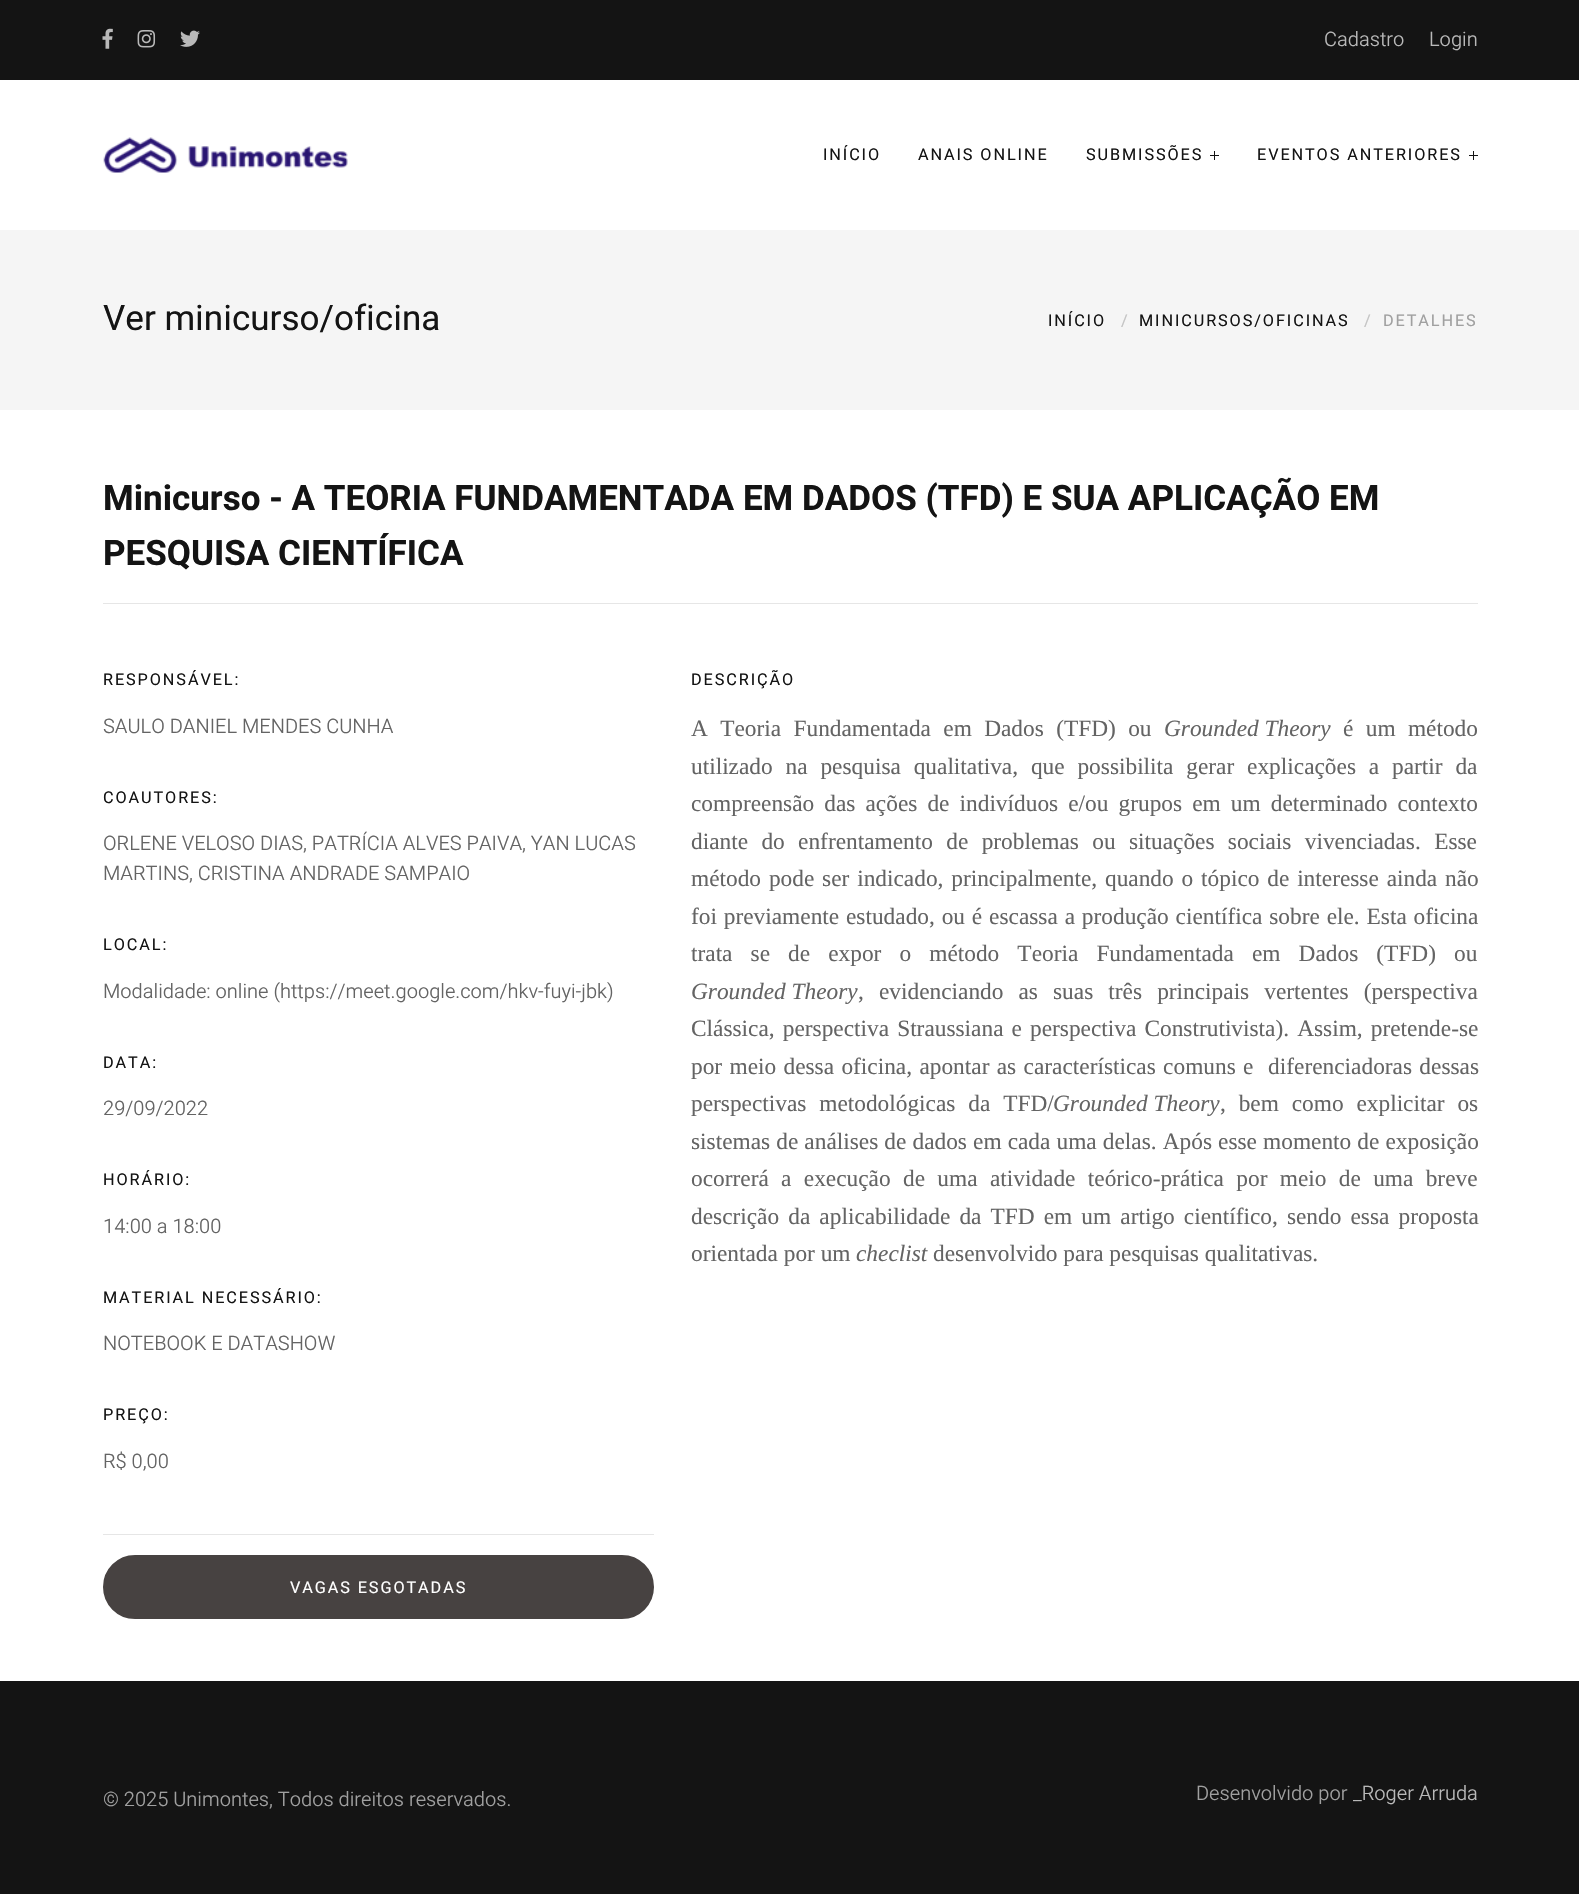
#include "include/core/SkBlurTypes.h"
#include "include/core/SkCanvas.h"
#include "include/core/SkData.h"
#include "include/core/SkFont.h"
#include "include/core/SkFontMgr.h"
#include "include/core/SkImage.h"
#include "include/core/SkMaskFilter.h"
#include "include/core/SkPaint.h"
#include "include/core/SkPathBuilder.h"
#include "include/core/SkTextBlob.h"
#include "include/effects/SkDashPathEffect.h"
#include "include/effects/SkGradientShader.h"
#include "include/utils/SkParsePath.h"

extern sk_sp<SkFontMgr> fontMgr;

void draw(SkCanvas* canvas) {
  SkPaint p;
  p.setAntiAlias(true);
  auto spacedText = [&](const char* s, float x, float y, const SkFont& font, const SkPaint& ink, float letter, float word) {
    std::vector<SkGlyphID> glyphs(font.countText(s, strlen(s), SkTextEncoding::kUTF8));
    std::vector<float> xs(glyphs.size());
    font.textToGlyphs(s, strlen(s), SkTextEncoding::kUTF8, glyphs);
    font.getXPos(glyphs, xs, x);
    float extra = 0;
    for (size_t i = 0; i < glyphs.size(); i++) {
      xs[i] += extra;
      extra += letter + word * (glyphs[i] == font.unicharToGlyph(' '));
    }
    canvas->drawTextBlob(SkTextBlob::MakeFromPosHGlyphs(glyphs, xs, y, font), 0, 0, ink);
  };
  canvas->clear(SK_ColorWHITE);
  p.setColor(SkColorSetRGB(20, 20, 20));
  canvas->drawRect(SkRect::MakeLTRB(0, 0, 1579, 80), p);
  canvas->drawImageRect(SkImages::DeferredFromEncodedData(SkData::MakeFromFileName("images/1.png")), SkRect::MakeLTRB(102, 28, 113, 49), SkSamplingOptions());
  canvas->drawImageRect(SkImages::DeferredFromEncodedData(SkData::MakeFromFileName("images/2.png")), SkRect::MakeLTRB(137, 30, 156, 48), SkSamplingOptions());
  canvas->drawImageRect(SkImages::DeferredFromEncodedData(SkData::MakeFromFileName("images/3.png")), SkRect::MakeLTRB(180, 30, 200, 47), SkSamplingOptions());
  canvas->drawImageRect(SkImages::DeferredFromEncodedData(SkData::MakeFromFileName("images/4.png")), SkRect::MakeLTRB(103, 137, 348, 173), SkSamplingOptions());
  canvas->drawRect(SkRect::MakeLTRB(1210, 155, 1219, 156), p);
  canvas->drawRect(SkRect::MakeLTRB(1214, 151, 1215, 160), p);
  canvas->drawRect(SkRect::MakeLTRB(1469, 155, 1478, 156), p);
  canvas->drawRect(SkRect::MakeLTRB(1473, 151, 1474, 160), p);
  p.setColor(SkColorSetRGB(245, 245, 245));
  canvas->drawRect(SkRect::MakeLTRB(0, 230, 1579, 410), p);
  p.setColor(SkColorSetRGB(230, 230, 230));
  canvas->drawRect(SkRect::MakeLTRB(103, 603, 1478, 604), p);
  canvas->drawRect(SkRect::MakeLTRB(103, 1534, 654, 1535), p);
  p.setColor(SkColorSetRGB(71, 66, 65));
  canvas->drawRoundRect(SkRect::MakeLTRB(104.5f, 1556.5f, 652.5f, 1617.5f), 30.5f, 30.5f, p);
  p.setStyle(SkPaint::kStroke_Style);
  p.setStrokeWidth(3);
  canvas->drawRoundRect(SkRect::MakeLTRB(104.5f, 1556.5f, 652.5f, 1617.5f), 30.5f, 30.5f, p);
  p.setStyle(SkPaint::kFill_Style);
  p.setColor(SkColorSetRGB(20, 20, 20));
  canvas->drawRect(SkRect::MakeLTRB(0, 1681, 1579, 1894), p);
  SkFont font1(fontMgr->matchFamilyStyle("Heebo", SkFontStyle(300, SkFontStyle::kNormal_Width, SkFontStyle::kUpright_Slant)), 20);
  font1.setSubpixel(true);
  p.setColor(SkColorSetRGB(185, 185, 185));
  canvas->drawString("Cadastro", 1324, 46, font1, p);
  canvas->drawString("Login", 1429, 46, font1, p);
  SkFont font2(fontMgr->matchFamilyStyle("Heebo", SkFontStyle::Normal()), 16.25f);
  font2.setSubpixel(true);
  p.setColor(SkColorSetRGB(20, 20, 20));
  spacedText("INÍCIO", 823, 160, font2, p, 1.9f, 0);
  spacedText("ANAIS ONLINE", 918, 160, font2, p, 1.9f, 0);
  spacedText("SUBMISSÕES", 1086, 160, font2, p, 1.9f, 0);
  spacedText("EVENTOS ANTERIORES", 1257, 160, font2, p, 1.9f, 0);
  SkFont font3(fontMgr->matchFamilyStyle("Heebo", SkFontStyle::Normal()), 35);
  font3.setSubpixel(true);
  canvas->drawString("Ver minicurso/oficina", 103, 330, font3, p);
  spacedText("INÍCIO", 1048, 326, font2, p, 1.9f, 0);
  p.setColor(SkColorSetRGB(196, 196, 196));
  spacedText("/", 1121, 326, font2, p, 1.9f, 0);
  p.setColor(SkColorSetRGB(20, 20, 20));
  spacedText("MINICURSOS/OFICINAS", 1139, 326, font2, p, 1.9f, 0);
  p.setColor(SkColorSetRGB(196, 196, 196));
  spacedText("/", 1364, 326, font2, p, 1.9f, 0);
  p.setColor(SkColorSetRGB(160, 160, 160));
  spacedText("DETALHES", 1383, 326, font2, p, 1.9f, 0);
  SkFont font4(fontMgr->matchFamilyStyle("Heebo", SkFontStyle::Bold()), 35);
  font4.setSubpixel(true);
  p.setColor(SkColorSetRGB(20, 20, 20));
  canvas->drawString("Minicurso - A TEORIA FUNDAMENTADA EM DADOS (TFD) E SUA APLICAÇÃO EM", 103, 510, font4, p);
  canvas->drawString("PESQUISA CIENTÍFICA", 103, 565, font4, p);
  spacedText("RESPONSÁVEL:", 103, 685, font2, p, 1.9f, 0);
  p.setColor(SkColorSetRGB(100, 100, 100));
  canvas->drawString("SAULO DANIEL MENDES CUNHA", 103, 733, font1, p);
  p.setColor(SkColorSetRGB(20, 20, 20));
  spacedText("COAUTORES:", 103, 803, font2, p, 1.9f, 0);
  p.setColor(SkColorSetRGB(100, 100, 100));
  canvas->drawString("ORLENE VELOSO DIAS, PATRÍCIA ALVES PAIVA, YAN LUCAS", 103, 850, font1, p);
  canvas->drawString("MARTINS, CRISTINA ANDRADE SAMPAIO", 103, 880, font1, p);
  p.setColor(SkColorSetRGB(20, 20, 20));
  spacedText("LOCAL:", 103, 950, font2, p, 1.9f, 0);
  p.setColor(SkColorSetRGB(100, 100, 100));
  canvas->drawString("Modalidade: online (https://meet.google.com/hkv-fuyi-jbk)", 103, 998, font1, p);
  p.setColor(SkColorSetRGB(20, 20, 20));
  spacedText("DATA:", 103, 1068, font2, p, 1.9f, 0);
  p.setColor(SkColorSetRGB(100, 100, 100));
  canvas->drawString("29/09/2022", 103, 1115, font1, p);
  p.setColor(SkColorSetRGB(20, 20, 20));
  spacedText("HORÁRIO:", 103, 1185, font2, p, 1.9f, 0);
  p.setColor(SkColorSetRGB(100, 100, 100));
  canvas->drawString("14:00 a 18:00", 103, 1233, font1, p);
  p.setColor(SkColorSetRGB(20, 20, 20));
  spacedText("MATERIAL NECESSÁRIO:", 103, 1303, font2, p, 1.9f, 0);
  p.setColor(SkColorSetRGB(100, 100, 100));
  canvas->drawString("NOTEBOOK E DATASHOW", 103, 1350, font1, p);
  p.setColor(SkColorSetRGB(20, 20, 20));
  spacedText("PREÇO:", 103, 1420, font2, p, 1.9f, 0);
  p.setColor(SkColorSetRGB(100, 100, 100));
  canvas->drawString("R$ 0,00", 103, 1468, font1, p);
  p.setColor(SK_ColorWHITE);
  spacedText("VAGAS ESGOTADAS", 290, 1593, font2, p, 1.9f, 0);
  p.setColor(SkColorSetRGB(20, 20, 20));
  spacedText("DESCRIÇÃO", 691, 685, font2, p, 1.9f, 0);
  SkFont font5(fontMgr->matchFamilyStyle("Liberation Serif", SkFontStyle::Normal()), 23.35f);
  font5.setSubpixel(true);
  p.setColor(SkColorSetRGB(100, 100, 100));
  spacedText("A Teoria Fundamentada em Dados (TFD) ou", 691, 736, font5, p, 0, 6.5f);
  SkFont font6(fontMgr->matchFamilyStyle("Liberation Serif", SkFontStyle::Italic()), 23.35f);
  font6.setSubpixel(true);
  canvas->drawString("Grounded Theory", 1164, 736, font6, p);
  spacedText("é um método", 1343, 736, font5, p, 0, 6.5f);
  spacedText("utilizado na pesquisa qualitativa, que possibilita gerar explicações a partir da", 691, 774, font5, p, 0, 7);
  spacedText("compreensão das ações de indivíduos e/ou grupos em um determinado contexto", 691, 811, font5, p, 0, 4.25f);
  spacedText("diante do enfrentamento de problemas ou situações sociais vivenciadas. Esse", 691, 849, font5, p, 0, 7.5f);
  spacedText("método pode ser indicado, principalmente, quando o tópico de interesse ainda não", 691, 886, font5, p, 0, 2);
  spacedText("foi previamente estudado, ou é escassa a produção científica sobre ele. Esta oficina", 691, 924, font5, p, 0, 1);
  spacedText("trata se de expor o método Teoria Fundamentada em Dados (TFD) ou", 691, 961, font5, p, 0, 12.25f);
  canvas->drawString("Grounded Theory", 691, 999, font6, p);
  spacedText(", evidenciando as suas três principais vertentes (perspectiva", 858, 999, font5, p, 0, 9.25f);
  spacedText("Clássica, perspectiva Straussiana e perspectiva Construtivista). Assim, pretende-se", 691, 1036, font5, p, 0, 2.25f);
  spacedText("por meio dessa oficina, apontar as características comuns e  diferenciadoras dessas", 691, 1074, font5, p, 0, 1.5f);
  spacedText("perspectivas metodológicas da TFD/", 691, 1111, font5, p, 0, 7);
  canvas->drawString("Grounded Theory", 1053, 1111, font6, p);
  spacedText(", bem como explicitar os", 1220, 1111, font5, p, 0, 7);
  spacedText("sistemas de análises de dados em cada uma delas. Após esse momento de exposição", 691, 1149, font5, p, 0, 0.25f);
  spacedText("ocorrerá a execução de uma atividade teórico-prática por meio de uma breve", 691, 1186, font5, p, 0, 6.5f);
  spacedText("descrição da aplicabilidade da TFD em um artigo científico, sendo essa proposta", 691, 1224, font5, p, 0, 3.25f);
  canvas->drawString("orientada por um", 691, 1261, font5, p);
  canvas->drawString("checlist", 856, 1261, font6, p);
  canvas->drawString("desenvolvido para pesquisas qualitativas.", 933, 1261, font5, p);
  p.setColor(SkColorSetRGB(160, 160, 160));
  canvas->drawString("© 2025 Unimontes, Todos direitos reservados.", 103, 1806, font1, p);
  canvas->drawString("Desenvolvido por", 1196, 1800, font1, p);
  p.setColor(SkColorSetRGB(185, 185, 185));
  canvas->drawString("_Roger Arruda", 1353, 1800, font1, p);
}
